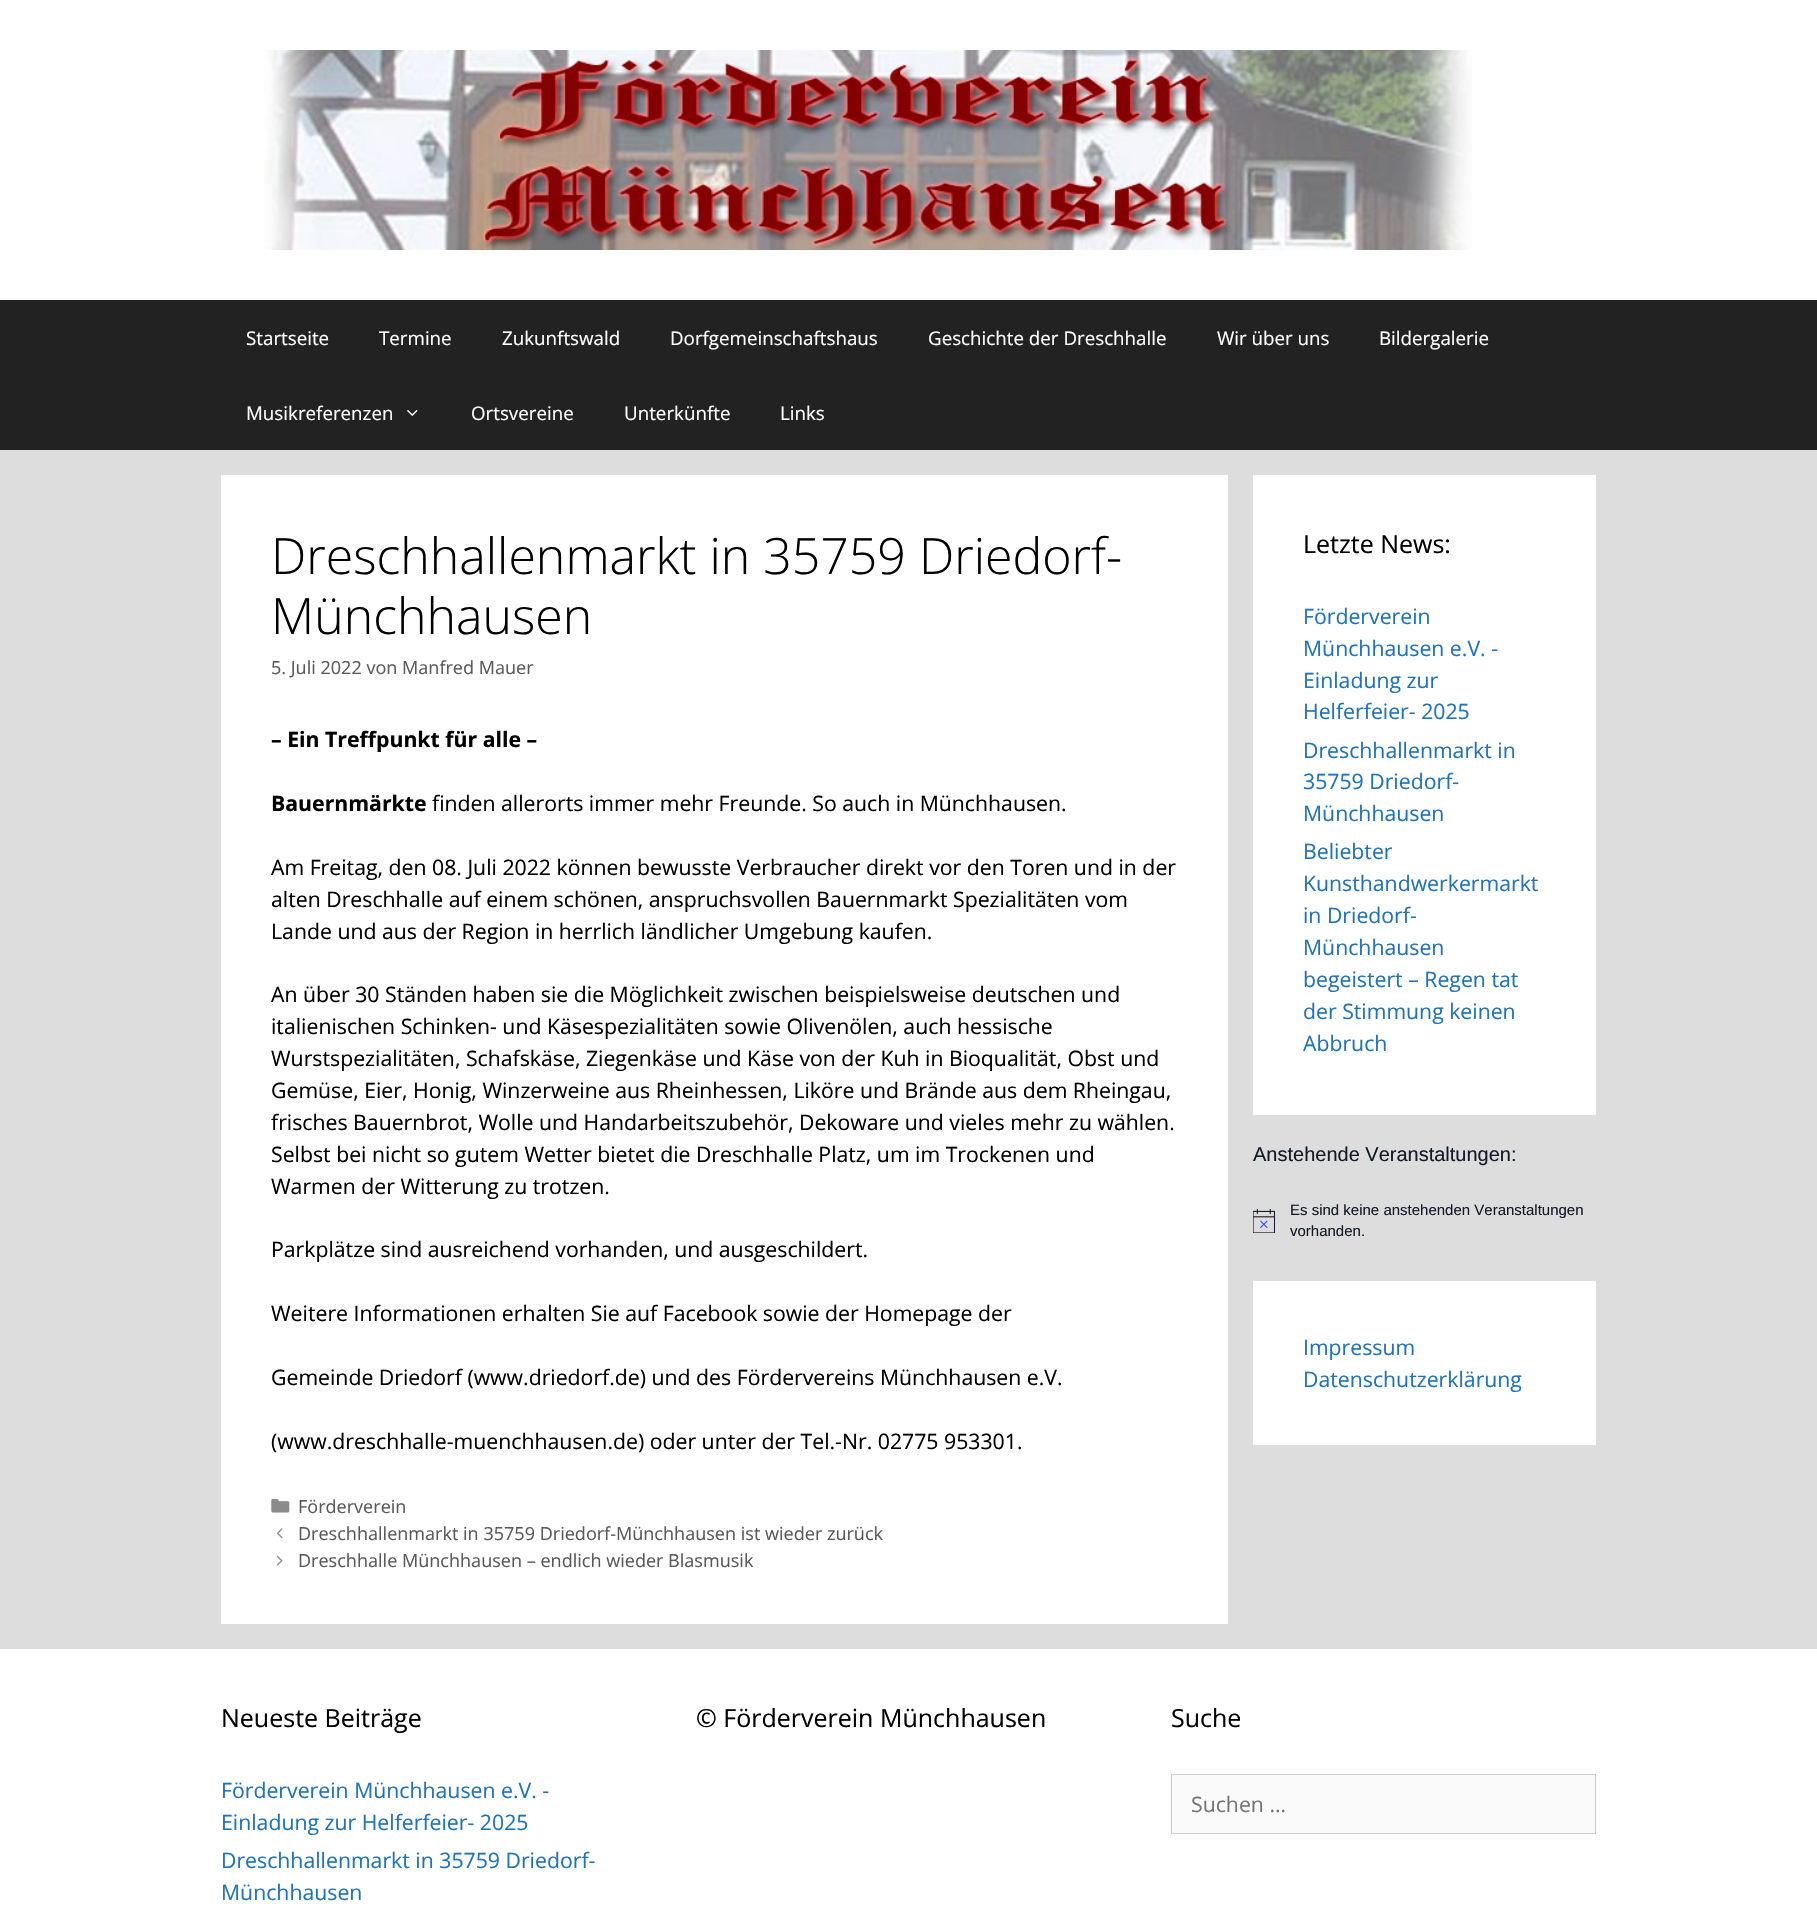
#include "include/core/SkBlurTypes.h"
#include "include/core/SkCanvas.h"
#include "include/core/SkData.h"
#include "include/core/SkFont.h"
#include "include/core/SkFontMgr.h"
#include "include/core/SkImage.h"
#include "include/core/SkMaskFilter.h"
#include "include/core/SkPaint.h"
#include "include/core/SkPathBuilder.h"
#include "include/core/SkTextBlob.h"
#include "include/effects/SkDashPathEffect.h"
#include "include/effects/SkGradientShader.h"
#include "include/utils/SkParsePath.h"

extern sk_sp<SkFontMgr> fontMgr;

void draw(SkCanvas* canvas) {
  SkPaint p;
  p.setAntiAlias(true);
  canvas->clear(SkColorSetRGB(221, 221, 221));
  p.setColor(SK_ColorWHITE);
  canvas->drawRect(SkRect::MakeLTRB(0, 0, 1817, 300), p);
  canvas->drawImageRect(SkImages::DeferredFromEncodedData(SkData::MakeFromFileName("images/1.png")), SkRect::MakeLTRB(264, 50, 1472, 250), SkSamplingOptions());
  p.setColor(SkColorSetRGB(34, 34, 34));
  canvas->drawRect(SkRect::MakeLTRB(0, 300, 1817, 450), p);
  canvas->drawImageRect(SkImages::DeferredFromEncodedData(SkData::MakeFromFileName("images/2.png")), SkRect::MakeLTRB(407, 410, 418, 416), SkSamplingOptions());
  p.setColor(SK_ColorWHITE);
  canvas->drawRect(SkRect::MakeLTRB(221, 475, 1228, 1624), p);
  canvas->drawImageRect(SkImages::DeferredFromEncodedData(SkData::MakeFromFileName("images/3.png")), SkRect::MakeLTRB(271, 1498, 290, 1513), SkSamplingOptions());
  canvas->drawImageRect(SkImages::DeferredFromEncodedData(SkData::MakeFromFileName("images/4.png")), SkRect::MakeLTRB(276, 1528, 283, 1539), SkSamplingOptions());
  canvas->drawImageRect(SkImages::DeferredFromEncodedData(SkData::MakeFromFileName("images/5.png")), SkRect::MakeLTRB(276, 1555, 283, 1566), SkSamplingOptions());
  canvas->drawRect(SkRect::MakeLTRB(1253, 475, 1596, 1115), p);
  canvas->drawImageRect(SkImages::DeferredFromEncodedData(SkData::MakeFromFileName("images/6.png")), SkRect::MakeLTRB(1253, 1209, 1275, 1233), SkSamplingOptions());
  canvas->drawRect(SkRect::MakeLTRB(1253, 1281, 1596, 1445), p);
  canvas->drawRect(SkRect::MakeLTRB(0, 1649, 1817, 1909), p);
  p.setColor(SkColorSetRGB(250, 250, 250));
  canvas->drawRect(SkRect::MakeLTRB(1171.5f, 1774.5f, 1595.5f, 1833.5f), p);
  p.setStyle(SkPaint::kStroke_Style);
  p.setStrokeWidth(1);
  p.setColor(SkColorSetRGB(204, 204, 204));
  canvas->drawRect(SkRect::MakeLTRB(1171.5f, 1774.5f, 1595.5f, 1833.5f), p);
  SkFont font1(fontMgr->matchFamilyStyle("Open Sans", SkFontStyle::Normal()), 18.75f);
  font1.setSubpixel(true);
  p.setStyle(SkPaint::kFill_Style);
  p.setColor(SK_ColorWHITE);
  canvas->drawString("Startseite", 246, 345, font1, p);
  canvas->drawString("Termine", 379, 345, font1, p);
  canvas->drawString("Zukunftswald", 502, 345, font1, p);
  canvas->drawString("Dorfgemeinschaftshaus", 670, 345, font1, p);
  canvas->drawString("Geschichte der Dreschhalle", 928, 345, font1, p);
  canvas->drawString("Wir über uns", 1217, 345, font1, p);
  canvas->drawString("Bildergalerie", 1379, 345, font1, p);
  canvas->drawString("Musikreferenzen", 246, 420, font1, p);
  canvas->drawString("Ortsvereine", 471, 420, font1, p);
  canvas->drawString("Unterkünfte", 624, 420, font1, p);
  canvas->drawString("Links", 780, 420, font1, p);
  SkFont font2(fontMgr->matchFamilyStyle("Open Sans", SkFontStyle(300, SkFontStyle::kNormal_Width, SkFontStyle::kUpright_Slant)), 50);
  font2.setSubpixel(true);
  p.setColor(SK_ColorBLACK);
  canvas->drawString("Dreschhallenmarkt in 35759 Driedorf-", 271, 574, font2, p);
  canvas->drawString("Münchhausen", 271, 634, font2, p);
  SkFont font3(fontMgr->matchFamilyStyle("Open Sans", SkFontStyle::Normal()), 18.05f);
  font3.setSubpixel(true);
  p.setColor(SkColorSetRGB(89, 89, 89));
  canvas->drawString("5. Juli 2022 von Manfred Mauer", 271, 674, font3, p);
  SkFont font4(fontMgr->matchFamilyStyle("Open Sans", SkFontStyle::Bold()), 21.25f);
  font4.setSubpixel(true);
  p.setColor(SK_ColorBLACK);
  canvas->drawString("– Ein Treffpunkt für alle –", 271, 747, font4, p);
  canvas->drawString("Bauernmärkte", 271, 811, font4, p);
  SkFont font5(fontMgr->matchFamilyStyle("Open Sans", SkFontStyle::Normal()), 21.25f);
  font5.setSubpixel(true);
  canvas->drawString("finden allerorts immer mehr Freunde. So auch in Münchhausen.", 432, 811, font5, p);
  canvas->drawString("Am Freitag, den 08. Juli 2022 können bewusste Verbraucher direkt vor den Toren und in der", 271, 875, font5, p);
  canvas->drawString("alten Dreschhalle auf einem schönen, anspruchsvollen Bauernmarkt Spezialitäten vom", 271, 907, font5, p);
  canvas->drawString("Lande und aus der Region in herrlich ländlicher Umgebung kaufen.", 271, 939, font5, p);
  canvas->drawString("An über 30 Ständen haben sie die Möglichkeit zwischen beispielsweise deutschen und", 271, 1002, font5, p);
  canvas->drawString("italienischen Schinken- und Käsespezialitäten sowie Olivenölen, auch hessische", 271, 1034, font5, p);
  canvas->drawString("Wurstspezialitäten, Schafskäse, Ziegenkäse und Käse von der Kuh in Bioqualität, Obst und", 271, 1066, font5, p);
  canvas->drawString("Gemüse, Eier, Honig, Winzerweine aus Rheinhessen, Liköre und Brände aus dem Rheingau,", 271, 1098, font5, p);
  canvas->drawString("frisches Bauernbrot, Wolle und Handarbeitszubehör, Dekoware und vieles mehr zu wählen.", 271, 1130, font5, p);
  canvas->drawString("Selbst bei nicht so gutem Wetter bietet die Dreschhalle Platz, um im Trockenen und", 271, 1162, font5, p);
  canvas->drawString("Warmen der Witterung zu trotzen.", 271, 1194, font5, p);
  canvas->drawString("Parkplätze sind ausreichend vorhanden, und ausgeschildert.", 271, 1257, font5, p);
  canvas->drawString("Weitere Informationen erhalten Sie auf Facebook sowie der Homepage der", 271, 1321, font5, p);
  canvas->drawString("Gemeinde Driedorf (www.driedorf.de) und des Fördervereins Münchhausen e.V.", 271, 1385, font5, p);
  canvas->drawString("(www.dreschhalle-muenchhausen.de) oder unter der Tel.-Nr. 02775 953301.", 271, 1449, font5, p);
  p.setColor(SkColorSetRGB(89, 89, 89));
  canvas->drawString("Förderverein", 298, 1513, font3, p);
  canvas->drawString("Dreschhallenmarkt in 35759 Driedorf-Münchhausen ist wieder zurück", 298, 1540, font3, p);
  canvas->drawString("Dreschhalle Münchhausen – endlich wieder Blasmusik", 298, 1567, font3, p);
  SkFont font6(fontMgr->matchFamilyStyle("Open Sans", SkFontStyle::Normal()), 25);
  font6.setSubpixel(true);
  p.setColor(SK_ColorBLACK);
  canvas->drawString("Letzte News:", 1303, 553, font6, p);
  p.setColor(SkColorSetRGB(30, 115, 190));
  canvas->drawString("Förderverein", 1303, 624, font5, p);
  canvas->drawString("Münchhausen e.V. -", 1303, 656, font5, p);
  canvas->drawString("Einladung zur", 1303, 688, font5, p);
  canvas->drawString("Helferfeier- 2025", 1303, 719, font5, p);
  canvas->drawString("Dreschhallenmarkt in", 1303, 758, font5, p);
  canvas->drawString("35759 Driedorf-", 1303, 789, font5, p);
  canvas->drawString("Münchhausen", 1303, 821, font5, p);
  canvas->drawString("Beliebter", 1303, 859, font5, p);
  canvas->drawString("Kunsthandwerkermarkt", 1303, 891, font5, p);
  canvas->drawString("in Driedorf-", 1303, 923, font5, p);
  canvas->drawString("Münchhausen", 1303, 955, font5, p);
  canvas->drawString("begeistert – Regen tat", 1303, 987, font5, p);
  canvas->drawString("der Stimmung keinen", 1303, 1019, font5, p);
  canvas->drawString("Abbruch", 1303, 1051, font5, p);
  SkFont font7(fontMgr->matchFamilyStyle("Liberation Sans", SkFontStyle::Normal()), 20);
  font7.setSubpixel(true);
  p.setColor(SkColorSetRGB(20, 24, 39));
  canvas->drawString("Anstehende Veranstaltungen:", 1253, 1161, font7, p);
  SkFont font8(fontMgr->matchFamilyStyle("Liberation Sans", SkFontStyle::Normal()), 15);
  font8.setSubpixel(true);
  canvas->drawString("Es sind keine anstehenden Veranstaltungen", 1290, 1215, font8, p);
  canvas->drawString("vorhanden.", 1290, 1236, font8, p);
  p.setColor(SkColorSetRGB(30, 115, 190));
  canvas->drawString("Impressum", 1303, 1355, font5, p);
  canvas->drawString("Datenschutzerklärung", 1303, 1387, font5, p);
  p.setColor(SK_ColorBLACK);
  canvas->drawString("Neueste Beiträge", 221, 1727, font6, p);
  p.setColor(SkColorSetRGB(30, 115, 190));
  canvas->drawString("Förderverein Münchhausen e.V. -", 221, 1798, font5, p);
  canvas->drawString("Einladung zur Helferfeier- 2025", 221, 1830, font5, p);
  canvas->drawString("Dreschhallenmarkt in 35759 Driedorf-", 221, 1868, font5, p);
  canvas->drawString("Münchhausen", 221, 1900, font5, p);
  p.setColor(SK_ColorBLACK);
  canvas->drawString("© Förderverein Münchhausen", 696, 1727, font6, p);
  canvas->drawString("Suche", 1171, 1727, font6, p);
  p.setColor(SkColorSetRGB(117, 117, 117));
  canvas->drawString("Suchen …", 1191, 1812, font5, p);
}
